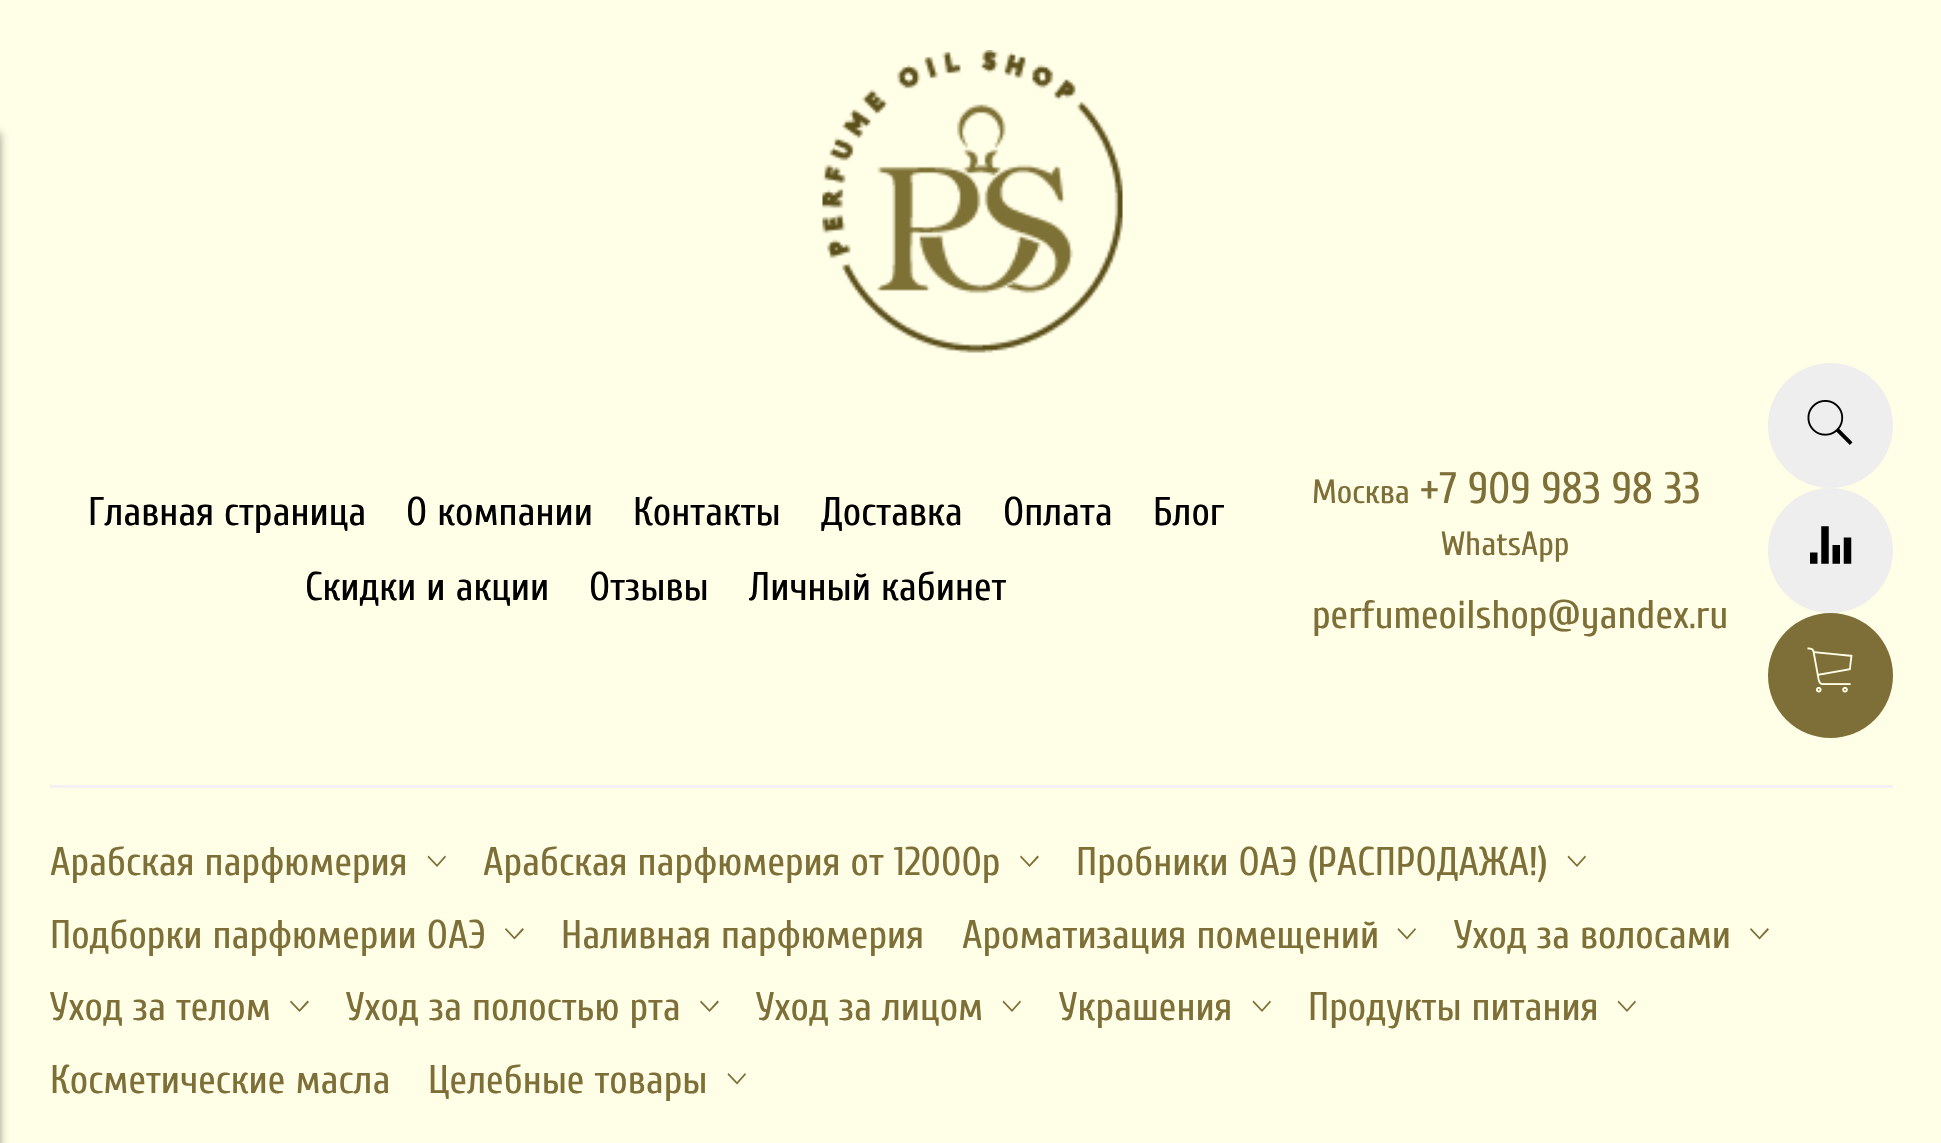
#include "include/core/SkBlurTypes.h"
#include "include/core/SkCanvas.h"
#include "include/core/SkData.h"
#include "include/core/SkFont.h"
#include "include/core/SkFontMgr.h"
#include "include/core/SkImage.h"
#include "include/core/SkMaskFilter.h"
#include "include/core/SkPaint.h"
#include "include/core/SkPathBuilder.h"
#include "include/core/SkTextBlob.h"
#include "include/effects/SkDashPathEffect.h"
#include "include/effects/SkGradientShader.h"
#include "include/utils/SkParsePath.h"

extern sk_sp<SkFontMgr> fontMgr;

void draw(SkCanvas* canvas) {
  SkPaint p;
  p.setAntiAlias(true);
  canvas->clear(SkColorSetRGB(255, 254, 230));
  p.setColor(SkColorSetARGB(102, 0, 0, 0));
  p.setMaskFilter(SkMaskFilter::MakeBlur(kNormal_SkBlurStyle, 4));
  canvas->drawRect(SkRect::MakeLTRB(-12, 133, 0, 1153), p);
  p.setMaskFilter(nullptr);
  canvas->drawImageRect(SkImages::DeferredFromEncodedData(SkData::MakeFromFileName("images/1.png")), SkRect::MakeLTRB(822, 50, 1123, 353), SkSamplingOptions());
  p.setColor(SkColorSetRGB(238, 238, 238));
  canvas->drawCircle(1830.5f, 425.5f, 62.5f, p);
  canvas->drawImageRect(SkImages::DeferredFromEncodedData(SkData::MakeFromFileName("images/2.png")), SkRect::MakeLTRB(1807, 400, 1853, 445), SkSamplingOptions());
  canvas->drawCircle(1830.5f, 550.5f, 62.5f, p);
  canvas->drawImageRect(SkImages::DeferredFromEncodedData(SkData::MakeFromFileName("images/3.png")), SkRect::MakeLTRB(1810, 526, 1852, 564), SkSamplingOptions());
  p.setColor(SkColorSetRGB(125, 111, 55));
  canvas->drawCircle(1830.5f, 675.5f, 62.5f, p);
  canvas->drawImageRect(SkImages::DeferredFromEncodedData(SkData::MakeFromFileName("images/4.png")), SkRect::MakeLTRB(1807, 647, 1853, 693), SkSamplingOptions());
  p.setColor(SkColorSetRGB(242, 242, 242));
  canvas->drawRect(SkRect::MakeLTRB(50, 785, 1893, 788), p);
  p.setColor(SkColorSetRGB(125, 111, 55));
  canvas->drawPath(SkPathBuilder().moveTo(445, 855.5f).lineTo(446, 857).lineTo(437, 867).lineTo(427.5f, 857).lineTo(428.5f, 855.5f).lineTo(437, 864.5f).close().detach(), p);
  canvas->drawPath(SkPathBuilder().moveTo(1037.5f, 855.5f).lineTo(1039, 857).lineTo(1029.5f, 867).lineTo(1020, 857).lineTo(1021, 855.5f).lineTo(1029.5f, 864.5f).close().detach(), p);
  canvas->drawPath(SkPathBuilder().moveTo(1585, 855.5f).lineTo(1586, 857).lineTo(1577, 867).lineTo(1567.5f, 857).lineTo(1568.5f, 855.5f).lineTo(1577, 864.5f).close().detach(), p);
  canvas->drawPath(SkPathBuilder().moveTo(522.5f, 928).lineTo(524, 929.5f).lineTo(514.5f, 939.5f).lineTo(505, 929.5f).lineTo(506, 928).lineTo(514.5f, 937).close().detach(), p);
  canvas->drawPath(SkPathBuilder().moveTo(1415, 928).lineTo(1416, 929.5f).lineTo(1407, 939.5f).lineTo(1397.5f, 929.5f).lineTo(1398.5f, 928).lineTo(1407, 937).close().detach(), p);
  canvas->drawPath(SkPathBuilder().moveTo(1767.5f, 928).lineTo(1769, 929.5f).lineTo(1759.5f, 939.5f).lineTo(1750, 929.5f).lineTo(1751, 928).lineTo(1759.5f, 937).close().detach(), p);
  canvas->drawPath(SkPathBuilder().moveTo(307.5f, 1000.5f).lineTo(309, 1002).lineTo(299.5f, 1012).lineTo(290, 1002).lineTo(291, 1000.5f).lineTo(299.5f, 1009.5f).close().detach(), p);
  canvas->drawPath(SkPathBuilder().moveTo(717.5f, 1000.5f).lineTo(719, 1002).lineTo(709.5f, 1012).lineTo(700, 1002).lineTo(701, 1000.5f).lineTo(709.5f, 1009.5f).close().detach(), p);
  canvas->drawPath(SkPathBuilder().moveTo(1020, 1000.5f).lineTo(1021, 1002).lineTo(1012, 1012).lineTo(1002.5f, 1002).lineTo(1003.5f, 1000.5f).lineTo(1012, 1009.5f).close().detach(), p);
  canvas->drawPath(SkPathBuilder().moveTo(1270, 1000.5f).lineTo(1271, 1002).lineTo(1262, 1012).lineTo(1252.5f, 1002).lineTo(1253.5f, 1000.5f).lineTo(1262, 1009.5f).close().detach(), p);
  canvas->drawPath(SkPathBuilder().moveTo(1635, 1000.5f).lineTo(1636, 1002).lineTo(1627, 1012).lineTo(1617.5f, 1002).lineTo(1618.5f, 1000.5f).lineTo(1627, 1009.5f).close().detach(), p);
  canvas->drawPath(SkPathBuilder().moveTo(745, 1073).lineTo(746, 1074.5f).lineTo(737, 1084.5f).lineTo(727.5f, 1074.5f).lineTo(728.5f, 1073).lineTo(737, 1082).close().detach(), p);
  SkFont font1(fontMgr->matchFamilyStyle("Cuprum", SkFontStyle::Normal()), 40);
  font1.setSubpixel(true);
  p.setColor(SK_ColorBLACK);
  canvas->drawString("Главная страница", 88, 525, font1, p);
  canvas->drawString("О компании", 406, 525, font1, p);
  canvas->drawString("Контакты", 633, 525, font1, p);
  canvas->drawString("Доставка", 821, 525, font1, p);
  canvas->drawString("Оплата", 1003, 525, font1, p);
  canvas->drawString("Блог", 1153, 525, font1, p);
  canvas->drawString("Скидки и акции", 305, 600, font1, p);
  canvas->drawString("Отзывы", 589, 600, font1, p);
  canvas->drawString("Личный кабинет", 749, 600, font1, p);
  SkFont font2(fontMgr->matchFamilyStyle("Cuprum", SkFontStyle::Normal()), 33.5f);
  font2.setSubpixel(true);
  p.setColor(SkColorSetRGB(125, 111, 55));
  canvas->drawString("Москва", 1312, 503, font2, p);
  SkFont font3(fontMgr->matchFamilyStyle("Cuprum", SkFontStyle::Normal()), 44);
  font3.setSubpixel(true);
  canvas->drawString("+7 909 983 98 33", 1420, 503, font3, p);
  canvas->drawString("WhatsApp", 1441, 555, font2, p);
  canvas->drawString("perfumeoilshop@yandex.ru", 1312, 628, font1, p);
  canvas->drawString("Арабская парфюмерия", 50, 875, font1, p);
  canvas->drawString("Арабская парфюмерия от 12000р", 483, 875, font1, p);
  canvas->drawString("Пробники ОАЭ (РАСПРОДАЖА!)", 1076, 875, font1, p);
  canvas->drawString("Подборки парфюмерии ОАЭ", 50, 948, font1, p);
  canvas->drawString("Наливная парфюмерия", 561, 948, font1, p);
  canvas->drawString("Ароматизация помещений", 962, 948, font1, p);
  canvas->drawString("Уход за волосами", 1454, 948, font1, p);
  canvas->drawString("Уход за телом", 50, 1020, font1, p);
  canvas->drawString("Уход за полостью рта", 346, 1020, font1, p);
  canvas->drawString("Уход за лицом", 756, 1020, font1, p);
  canvas->drawString("Украшения", 1059, 1020, font1, p);
  canvas->drawString("Продукты питания", 1308, 1020, font1, p);
  canvas->drawString("Косметические масла", 50, 1093, font1, p);
  canvas->drawString("Целебные товары", 428, 1093, font1, p);
}
